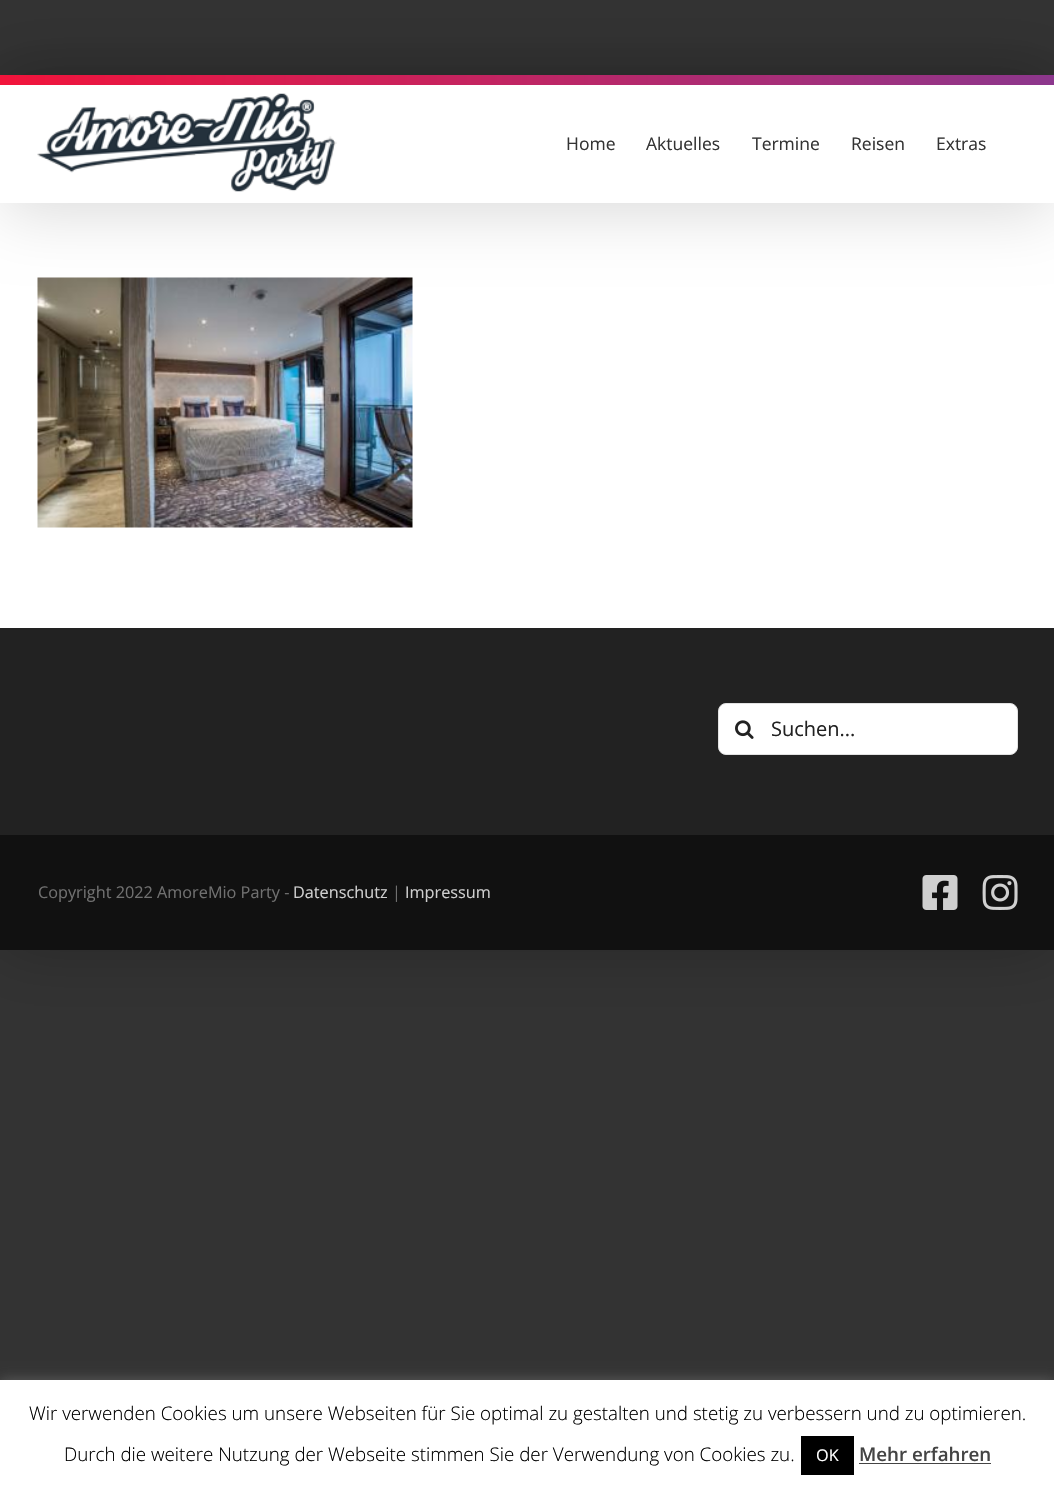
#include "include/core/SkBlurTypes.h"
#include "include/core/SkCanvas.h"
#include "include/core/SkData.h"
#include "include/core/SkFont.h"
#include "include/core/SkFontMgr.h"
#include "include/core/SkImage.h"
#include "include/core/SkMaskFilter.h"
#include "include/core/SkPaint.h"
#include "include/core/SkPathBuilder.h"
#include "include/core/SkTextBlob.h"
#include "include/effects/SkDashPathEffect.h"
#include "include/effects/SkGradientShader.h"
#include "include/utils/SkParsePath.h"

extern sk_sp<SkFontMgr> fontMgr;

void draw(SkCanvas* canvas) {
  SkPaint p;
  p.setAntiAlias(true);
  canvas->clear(SkColorSetRGB(51, 51, 51));
  p.setColor(SkColorSetARGB(56, 0, 0, 0));
  p.setMaskFilter(SkMaskFilter::MakeBlur(kNormal_SkBlurStyle, 31));
  canvas->drawRect(SkRect::MakeLTRB(-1, 74, 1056, 951), p);
  p.setMaskFilter(nullptr);
  p.setColor(SK_ColorWHITE);
  canvas->drawRect(SkRect::MakeLTRB(0, 203, 1054, 628), p);
  canvas->drawImageRect(SkImages::DeferredFromEncodedData(SkData::MakeFromFileName("images/2.png")), SkRect::MakeLTRB(37, 277, 413, 528), SkSamplingOptions());
  p.setColor(SkColorSetARGB(36, 0, 0, 0));
  p.setMaskFilter(SkMaskFilter::MakeBlur(kNormal_SkBlurStyle, 31));
  canvas->drawRect(SkRect::MakeLTRB(3, 90, 1053, 213), p);
  p.setMaskFilter(nullptr);
  p.setColor(SK_ColorWHITE);
  canvas->drawRect(SkRect::MakeLTRB(0, 85, 1054, 203), p);
  {
    const SkColor colors[] = {SkColorSetRGB(242, 20, 59), SkColorSetRGB(140, 55, 141)};
    const float stops[] = {0, 1};
    const SkPoint ends[] = {{0, 80}, {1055, 80}};
    p.setShader(SkGradientShader::MakeLinear(ends, colors, stops, 2, SkTileMode::kClamp));
    p.setAlpha(255);
  }
  canvas->drawRect(SkRect::MakeLTRB(0, 75, 1054, 85), p);
  canvas->drawImageRect(SkImages::DeferredFromEncodedData(SkData::MakeFromFileName("images/1.png")), SkRect::MakeLTRB(37, 93, 337, 192), SkSamplingOptions());
  p.setShader(nullptr);
  p.setColor(SkColorSetRGB(34, 34, 34));
  canvas->drawRect(SkRect::MakeLTRB(0, 628, 1054, 835), p);
  p.setColor(SK_ColorWHITE);
  canvas->drawRoundRect(SkRect::MakeLTRB(718.5f, 703.5f, 1017.5f, 754.5f), 7.5f, 7.5f, p);
  p.setStyle(SkPaint::kStroke_Style);
  p.setStrokeWidth(1);
  p.setColor(SkColorSetRGB(226, 226, 226));
  canvas->drawRoundRect(SkRect::MakeLTRB(718.5f, 703.5f, 1017.5f, 754.5f), 7.5f, 7.5f, p);
  canvas->drawImageRect(SkImages::DeferredFromEncodedData(SkData::MakeFromFileName("images/3.png")), SkRect::MakeLTRB(735, 720, 754, 739), SkSamplingOptions());
  p.setStyle(SkPaint::kFill_Style);
  p.setColor(SkColorSetRGB(17, 17, 17));
  canvas->drawRect(SkRect::MakeLTRB(0, 835, 1054, 950), p);
  canvas->drawImageRect(SkImages::DeferredFromEncodedData(SkData::MakeFromFileName("images/4.png")), SkRect::MakeLTRB(922, 875, 958, 910), SkSamplingOptions());
  canvas->drawImageRect(SkImages::DeferredFromEncodedData(SkData::MakeFromFileName("images/5.png")), SkRect::MakeLTRB(982, 875, 1018, 910), SkSamplingOptions());
  p.setColor(SkColorSetARGB(77, 172, 171, 171));
  p.setMaskFilter(SkMaskFilter::MakeBlur(kNormal_SkBlurStyle, 6));
  canvas->drawRect(SkRect::MakeLTRB(0, 1379, 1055, 1489), p);
  p.setMaskFilter(nullptr);
  p.setColor(SK_ColorWHITE);
  canvas->drawRect(SkRect::MakeLTRB(0, 1380, 1054, 1489), p);
  p.setColor(SK_ColorBLACK);
  canvas->drawRect(SkRect::MakeLTRB(801, 1436, 854, 1475), p);
  p.setColor(SkColorSetRGB(68, 68, 68));
  canvas->drawRect(SkRect::MakeLTRB(859, 1463, 991, 1464), p);
  SkFont font1(fontMgr->matchFamilyStyle("Open Sans", SkFontStyle::Normal()), 17.5f);
  font1.setSubpixel(true);
  p.setColor(SkColorSetRGB(52, 52, 52));
  canvas->drawString("Home", 566, 150, font1, p);
  canvas->drawString("Aktuelles", 646, 150, font1, p);
  canvas->drawString("Termine", 752, 150, font1, p);
  canvas->drawString("Reisen", 851, 150, font1, p);
  canvas->drawString("Extras", 936, 150, font1, p);
  SkFont font2(fontMgr->matchFamilyStyle("Open Sans", SkFontStyle::Normal()), 20);
  font2.setSubpixel(true);
  p.setColor(SkColorSetRGB(34, 34, 34));
  canvas->drawString("Suchen...", 771, 736, font2, p);
  SkFont font3(fontMgr->matchFamilyStyle("Open Sans", SkFontStyle::Normal()), 16.25f);
  font3.setSubpixel(true);
  p.setColor(SkColorSetRGB(112, 112, 112));
  canvas->drawString("Copyright 2022 AmoreMio Party -", 38, 898, font3, p);
  p.setColor(SkColorSetRGB(207, 207, 207));
  canvas->drawString("Datenschutz", 293, 898, font3, p);
  p.setColor(SkColorSetRGB(112, 112, 112));
  canvas->drawString("|", 392, 898, font3, p);
  p.setColor(SkColorSetRGB(207, 207, 207));
  canvas->drawString("Impressum", 405, 898, font3, p);
  SkFont font4(fontMgr->matchFamilyStyle("Open Sans", SkFontStyle(300, SkFontStyle::kNormal_Width, SkFontStyle::kUpright_Slant)), 18.75f);
  font4.setSubpixel(true);
  p.setColor(SK_ColorBLACK);
  canvas->drawString("Wir verwenden Cookies um unsere Webseiten für Sie optimal zu gestalten und stetig zu verbessern und zu optimieren.", 29, 1420, font4, p);
  canvas->drawString("Durch die weitere Nutzung der Webseite stimmen Sie der Verwendung von Cookies zu.", 64, 1461, font4, p);
  p.setColor(SK_ColorWHITE);
  canvas->drawString("OK", 816, 1461, font3, p);
  SkFont font5(fontMgr->matchFamilyStyle("Open Sans", SkFontStyle(600, SkFontStyle::kNormal_Width, SkFontStyle::kUpright_Slant)), 18.75f);
  font5.setSubpixel(true);
  p.setColor(SkColorSetRGB(68, 68, 68));
  canvas->drawString("Mehr erfahren", 859, 1461, font5, p);
}
